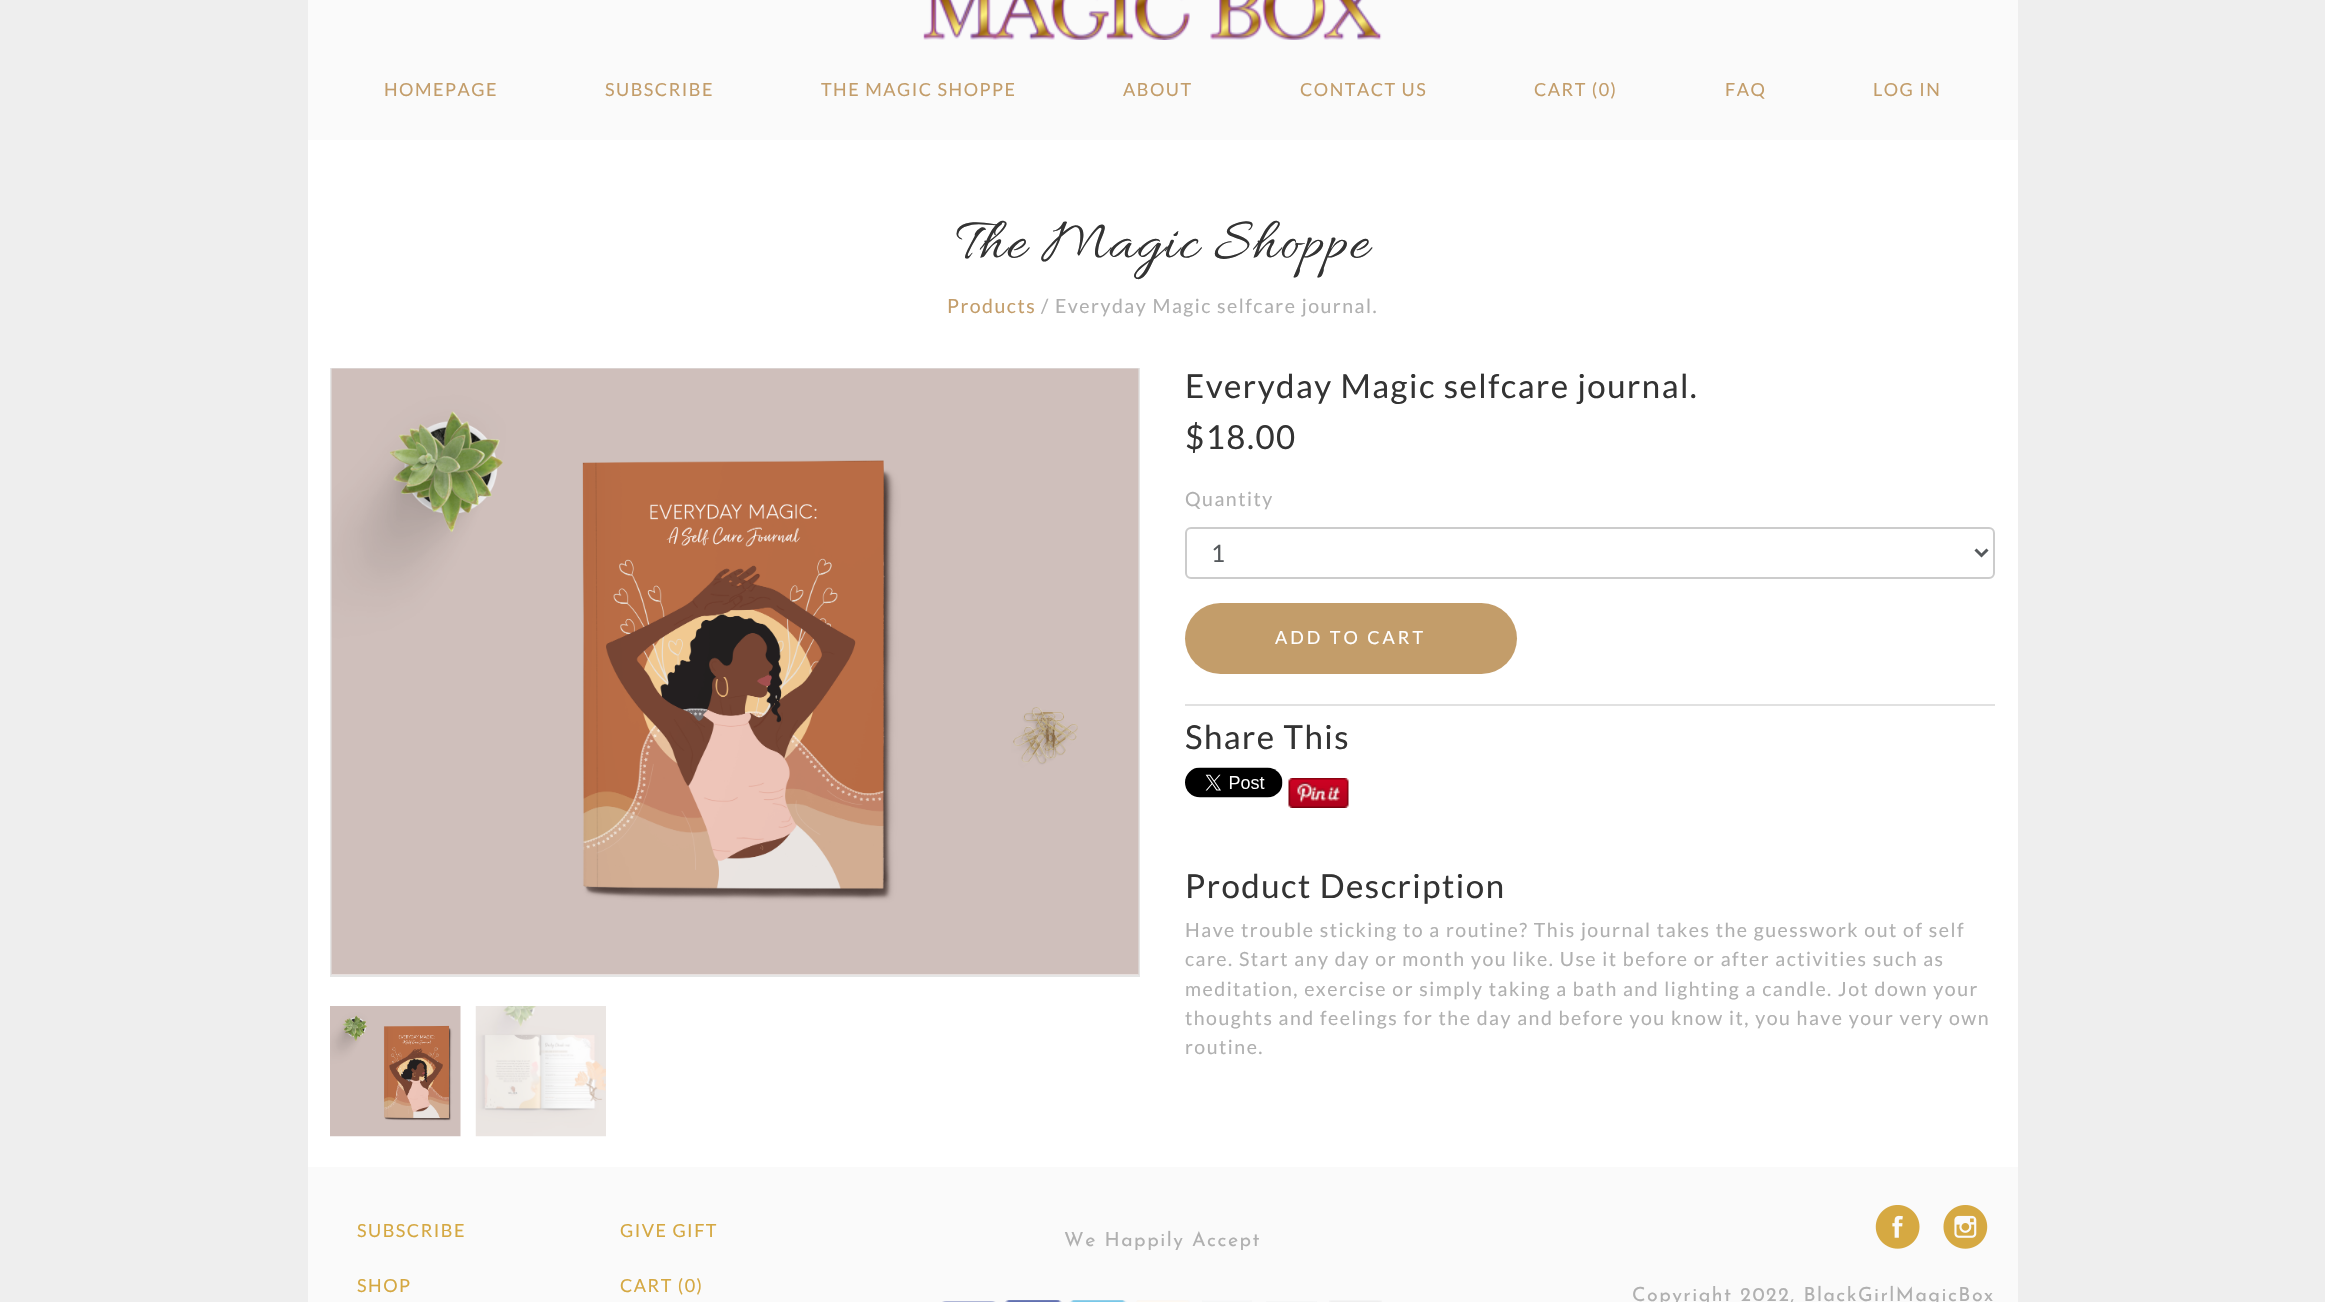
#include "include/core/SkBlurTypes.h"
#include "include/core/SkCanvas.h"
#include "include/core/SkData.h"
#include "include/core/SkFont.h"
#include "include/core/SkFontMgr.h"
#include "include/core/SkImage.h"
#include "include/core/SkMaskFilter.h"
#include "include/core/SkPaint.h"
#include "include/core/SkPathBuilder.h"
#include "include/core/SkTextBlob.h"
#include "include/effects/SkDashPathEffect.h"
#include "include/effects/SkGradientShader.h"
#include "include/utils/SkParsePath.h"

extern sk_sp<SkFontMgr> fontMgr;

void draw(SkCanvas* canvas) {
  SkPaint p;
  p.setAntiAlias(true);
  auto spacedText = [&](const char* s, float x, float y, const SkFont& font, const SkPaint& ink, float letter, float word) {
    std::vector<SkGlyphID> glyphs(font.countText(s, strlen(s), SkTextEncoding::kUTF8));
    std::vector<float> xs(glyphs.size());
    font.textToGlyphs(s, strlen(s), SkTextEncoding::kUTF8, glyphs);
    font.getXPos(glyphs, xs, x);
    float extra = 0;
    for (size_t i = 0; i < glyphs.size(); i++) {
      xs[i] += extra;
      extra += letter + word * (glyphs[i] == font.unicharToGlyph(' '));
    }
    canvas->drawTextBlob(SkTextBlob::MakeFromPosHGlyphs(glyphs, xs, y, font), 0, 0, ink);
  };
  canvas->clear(SkColorSetRGB(238, 238, 238));
  p.setColor(SK_ColorWHITE);
  canvas->drawRect(SkRect::MakeLTRB(308, 140, 2018, 1167), p);
  p.setColor(SkColorSetRGB(250, 250, 250));
  canvas->drawRect(SkRect::MakeLTRB(308, 0, 2018, 140), p);
  canvas->drawImageRect(SkImages::DeferredFromEncodedData(SkData::MakeFromFileName("images/1.png")), SkRect::MakeLTRB(923, 0, 1382, 40), SkSamplingOptions());
  p.setStyle(SkPaint::kStroke_Style);
  p.setStrokeWidth(2);
  p.setColor(SkColorSetRGB(229, 229, 229));
  canvas->drawRect(SkRect::MakeLTRB(331, 369, 1139, 976), p);
  canvas->drawImageRect(SkImages::DeferredFromEncodedData(SkData::MakeFromFileName("images/2.png")), SkRect::MakeLTRB(331, 368, 1139, 975), SkSamplingOptions());
  canvas->drawImageRect(SkImages::DeferredFromEncodedData(SkData::MakeFromFileName("images/3.png")), SkRect::MakeLTRB(330, 1006, 461, 1137), SkSamplingOptions());
  canvas->drawImageRect(SkImages::DeferredFromEncodedData(SkData::MakeFromFileName("images/4.png")), SkRect::MakeLTRB(475, 1006, 606, 1137), SkSamplingOptions());
  p.setColor(SkColorSetRGB(204, 204, 204));
  canvas->drawRoundRect(SkRect::MakeLTRB(1186, 528, 1994, 578), 5, 5, p);
  p.setStrokeWidth(3);
  p.setColor(SkColorSetRGB(85, 89, 92));
  canvas->drawPath(SkPathBuilder().moveTo(1975.5f, 549.5f).lineTo(1981.5f, 555.5f).lineTo(1987.5f, 549.5f).detach(), p);
  p.setStyle(SkPaint::kFill_Style);
  p.setColor(SkColorSetRGB(195, 157, 106));
  canvas->drawRoundRect(SkRect::MakeLTRB(1185, 603, 1517, 674), 35.5f, 35.5f, p);
  p.setColor(SkColorSetRGB(225, 225, 225));
  canvas->drawRect(SkRect::MakeLTRB(1185, 704, 1995, 706), p);
  canvas->drawImageRect(SkImages::DeferredFromEncodedData(SkData::MakeFromFileName("images/5.png")), SkRect::MakeLTRB(1185, 767, 1283, 798), SkSamplingOptions());
  canvas->drawImageRect(SkImages::DeferredFromEncodedData(SkData::MakeFromFileName("images/6.png")), SkRect::MakeLTRB(1288, 778, 1349, 808), SkSamplingOptions());
  p.setColor(SkColorSetRGB(250, 250, 250));
  canvas->drawRect(SkRect::MakeLTRB(308, 1167, 2018, 1302), p);
  canvas->drawImageRect(SkImages::DeferredFromEncodedData(SkData::MakeFromFileName("images/7.png")), SkRect::MakeLTRB(942, 1301, 996, 1302), SkSamplingOptions());
  canvas->drawImageRect(SkImages::DeferredFromEncodedData(SkData::MakeFromFileName("images/8.png")), SkRect::MakeLTRB(1005, 1300, 1062, 1302), SkSamplingOptions());
  canvas->drawImageRect(SkImages::DeferredFromEncodedData(SkData::MakeFromFileName("images/9.png")), SkRect::MakeLTRB(1069, 1300, 1127, 1302), SkSamplingOptions());
  canvas->drawImageRect(SkImages::DeferredFromEncodedData(SkData::MakeFromFileName("images/10.png")), SkRect::MakeLTRB(1136, 1300, 1190, 1302), SkSamplingOptions());
  canvas->drawImageRect(SkImages::DeferredFromEncodedData(SkData::MakeFromFileName("images/11.png")), SkRect::MakeLTRB(1202, 1300, 1252, 1302), SkSamplingOptions());
  canvas->drawImageRect(SkImages::DeferredFromEncodedData(SkData::MakeFromFileName("images/12.png")), SkRect::MakeLTRB(1266, 1301, 1317, 1302), SkSamplingOptions());
  canvas->drawImageRect(SkImages::DeferredFromEncodedData(SkData::MakeFromFileName("images/13.png")), SkRect::MakeLTRB(1329, 1300, 1382, 1302), SkSamplingOptions());
  canvas->drawImageRect(SkImages::DeferredFromEncodedData(SkData::MakeFromFileName("images/14.png")), SkRect::MakeLTRB(1875, 1205, 1920, 1249), SkSamplingOptions());
  canvas->drawImageRect(SkImages::DeferredFromEncodedData(SkData::MakeFromFileName("images/15.png")), SkRect::MakeLTRB(1943, 1205, 1988, 1249), SkSamplingOptions());
  SkFont font1(fontMgr->matchFamilyStyle("Lato", SkFontStyle::Normal()), 18);
  font1.setSubpixel(true);
  p.setColor(SkColorSetRGB(195, 157, 106));
  spacedText("HOMEPAGE", 384, 96, font1, p, 1.5f, 0);
  spacedText("SUBSCRIBE", 605, 96, font1, p, 1.5f, 0);
  spacedText("THE MAGIC SHOPPE", 821, 96, font1, p, 1.5f, 0);
  spacedText("ABOUT", 1123, 96, font1, p, 1.5f, 0);
  spacedText("CONTACT US", 1300, 96, font1, p, 1.5f, 0);
  spacedText("CART (0)", 1534, 96, font1, p, 1.5f, 0);
  spacedText("FAQ", 1725, 96, font1, p, 1.5f, 0);
  spacedText("LOG IN", 1873, 96, font1, p, 1.5f, 0);
  SkFont font2(fontMgr->matchFamilyStyle("Allura", SkFontStyle::Normal()), 60);
  font2.setSubpixel(true);
  p.setColor(SkColorSetRGB(51, 51, 51));
  spacedText("The Magic Shoppe", 956, 257, font2, p, 1.5f, 0);
  SkFont font3(fontMgr->matchFamilyStyle("Lato", SkFontStyle::Normal()), 19.5f);
  font3.setSubpixel(true);
  p.setColor(SkColorSetRGB(195, 157, 106));
  spacedText("Products", 947, 313, font3, p, 1.5f, 0);
  p.setColor(SkColorSetRGB(176, 176, 176));
  spacedText("/ Everyday Magic selfcare journal.", 1041, 313, font3, p, 1.5f, 0);
  SkFont font4(fontMgr->matchFamilyStyle("Lato", SkFontStyle::Normal()), 33);
  font4.setSubpixel(true);
  p.setColor(SkColorSetRGB(51, 51, 51));
  spacedText("Everyday Magic selfcare journal.", 1185, 398, font4, p, 1.5f, 0);
  spacedText("$18.00", 1185, 449, font4, p, 1.5f, 0);
  p.setColor(SkColorSetRGB(176, 176, 176));
  spacedText("Quantity", 1185, 506, font3, p, 1.5f, 0);
  SkFont font5(fontMgr->matchFamilyStyle("Lato", SkFontStyle::Normal()), 24);
  font5.setSubpixel(true);
  p.setColor(SkColorSetRGB(85, 89, 92));
  canvas->drawString("1", 1211, 562, font5, p);
  p.setColor(SK_ColorWHITE);
  spacedText("ADD TO CART", 1275, 644, font1, p, 3, 0);
  p.setColor(SkColorSetRGB(51, 51, 51));
  spacedText("Share This", 1185, 749, font4, p, 1.5f, 0);
  spacedText("Product Description", 1185, 898, font4, p, 1.5f, 0);
  p.setColor(SkColorSetRGB(176, 176, 176));
  spacedText("Have trouble sticking to a routine? This journal takes the guesswork out of self", 1185, 937, font3, p, 1.5f, 0);
  spacedText("care. Start any day or month you like. Use it before or after activities such as", 1185, 966, font3, p, 1.5f, 0);
  spacedText("meditation, exercise or simply taking a bath and lighting a candle. Jot down your", 1185, 996, font3, p, 1.5f, 0);
  spacedText("thoughts and feelings for the day and before you know it, you have your very own", 1185, 1025, font3, p, 1.5f, 0);
  spacedText("routine.", 1185, 1054, font3, p, 1.5f, 0);
  p.setColor(SkColorSetRGB(213, 168, 66));
  spacedText("SUBSCRIBE", 357, 1237, font1, p, 1.5f, 0);
  spacedText("GIVE GIFT", 620, 1237, font1, p, 1.5f, 0);
  spacedText("SHOP", 357, 1292, font1, p, 1.5f, 0);
  spacedText("CART (0)", 620, 1292, font1, p, 1.5f, 0);
  SkFont font6(fontMgr->matchFamilyStyle("Josefin Sans", SkFontStyle(100, SkFontStyle::kNormal_Width, SkFontStyle::kUpright_Slant)), 19.5f);
  font6.setSubpixel(true);
  p.setColor(SkColorSetRGB(176, 176, 176));
  spacedText("We Happily Accept", 1064, 1246, font6, p, 1.5f, 0);
  spacedText("Copyright 2022, BlackGirlMagicBox", 1632, 1301, font6, p, 1.5f, 0);
}
